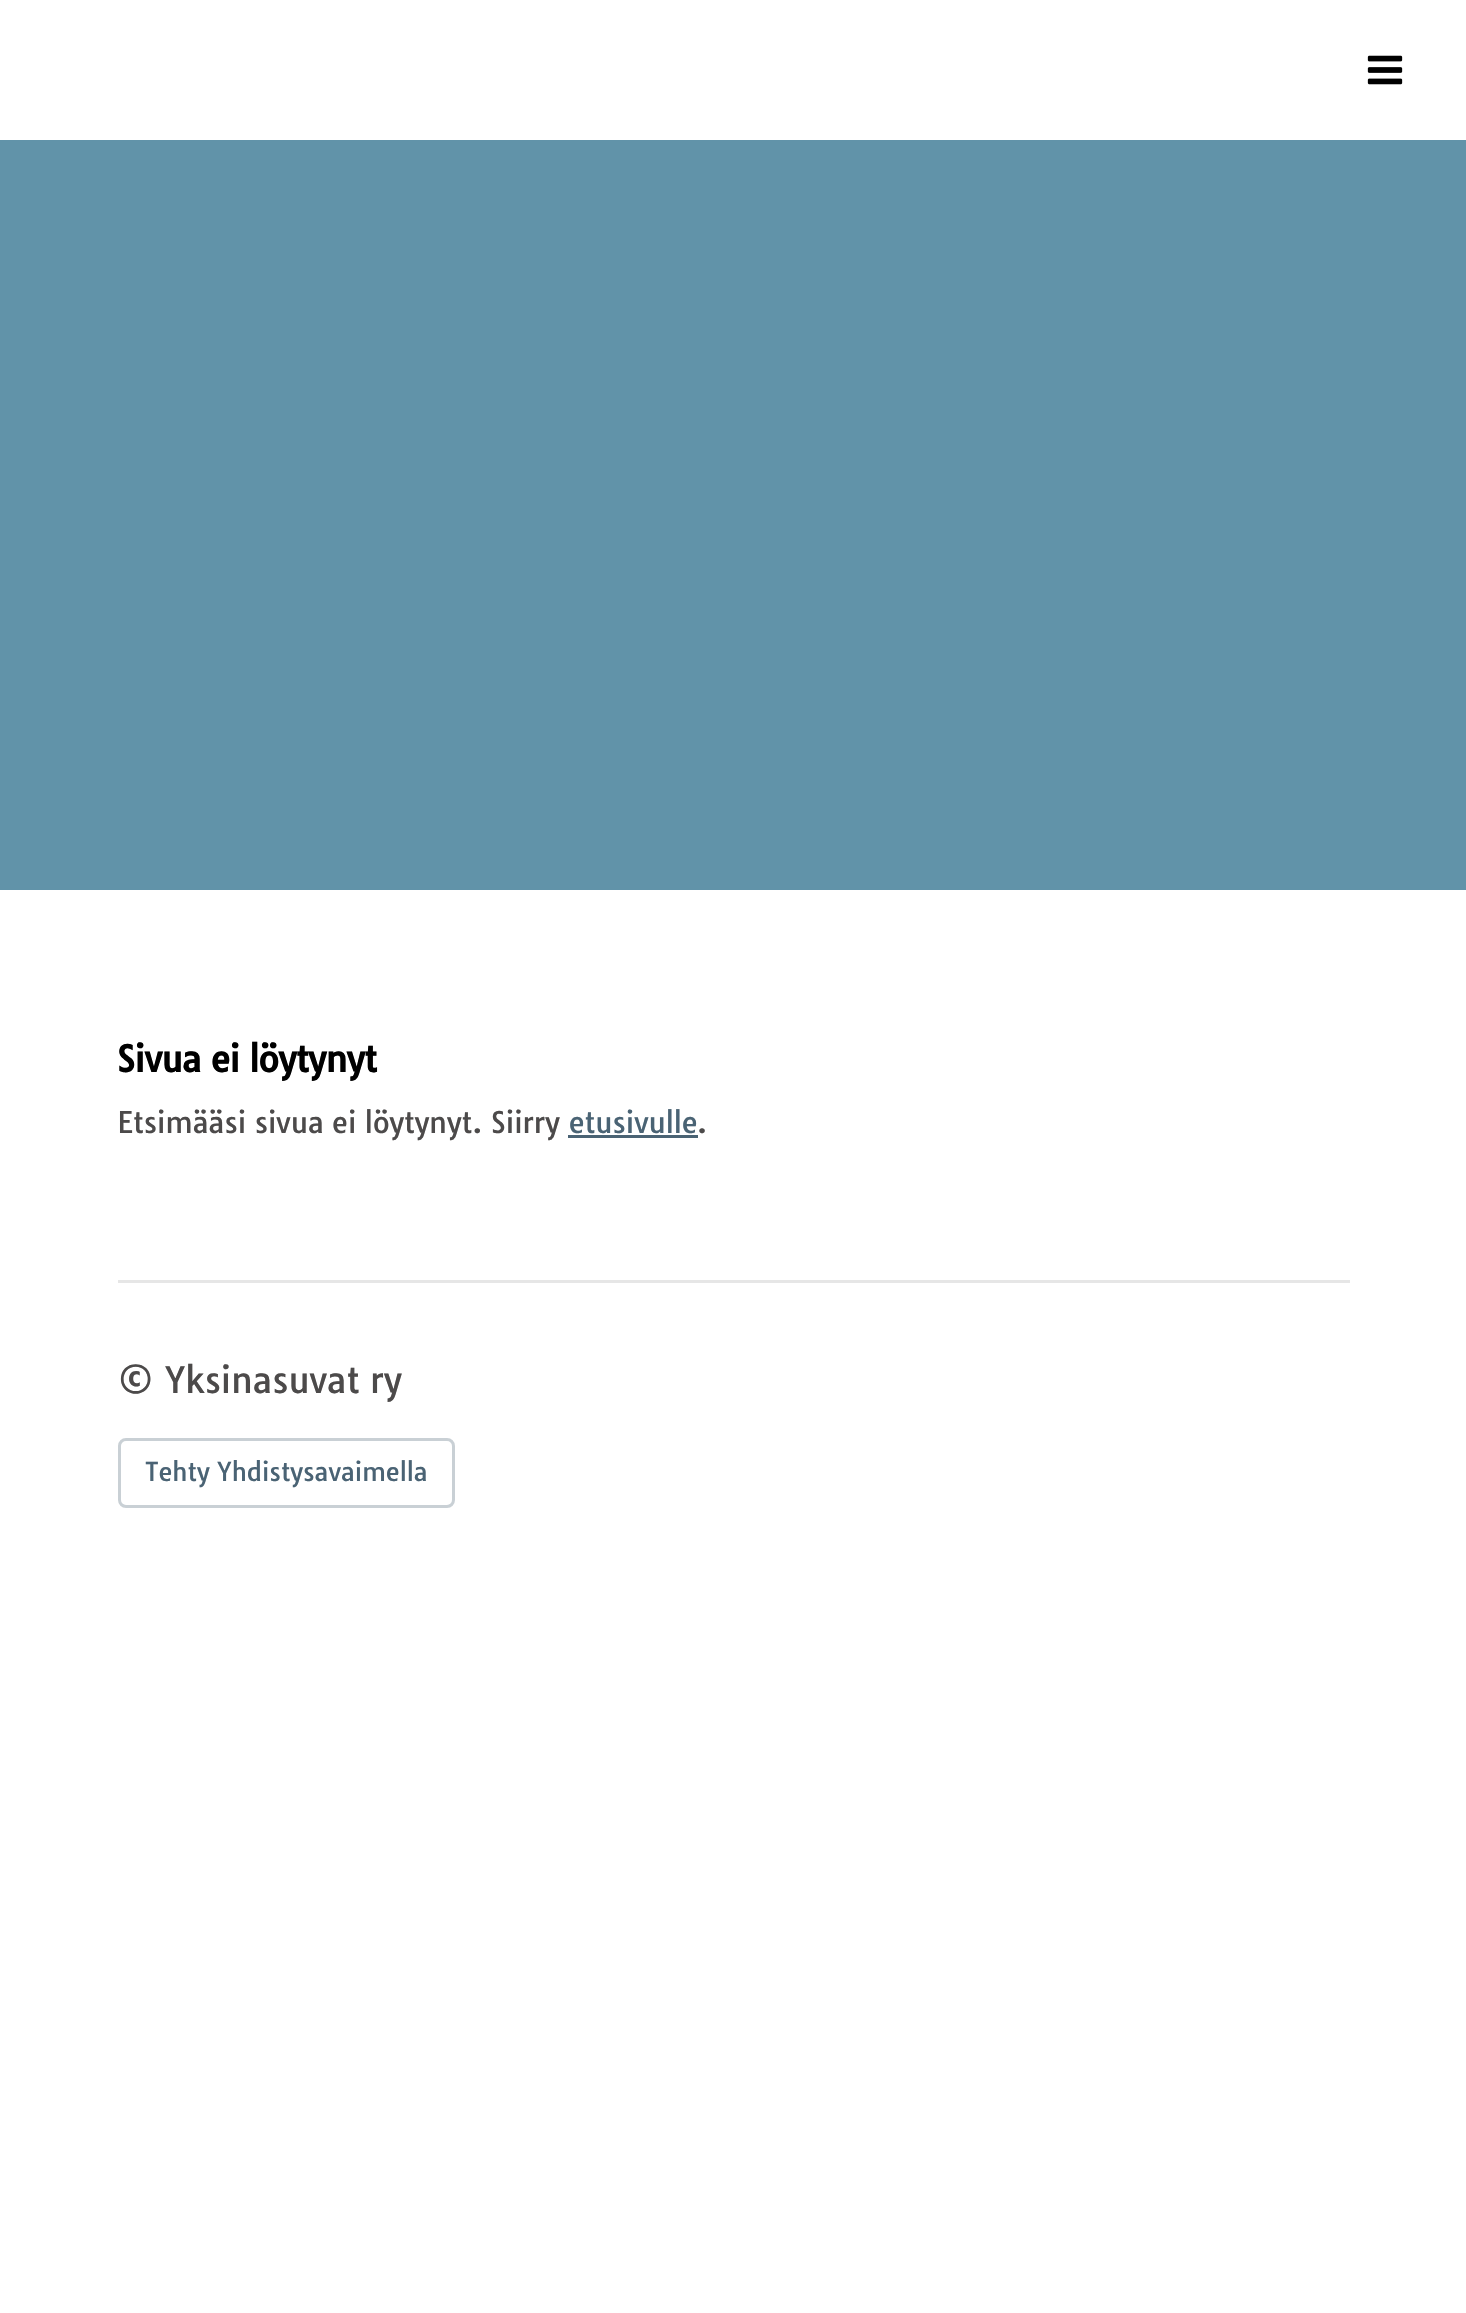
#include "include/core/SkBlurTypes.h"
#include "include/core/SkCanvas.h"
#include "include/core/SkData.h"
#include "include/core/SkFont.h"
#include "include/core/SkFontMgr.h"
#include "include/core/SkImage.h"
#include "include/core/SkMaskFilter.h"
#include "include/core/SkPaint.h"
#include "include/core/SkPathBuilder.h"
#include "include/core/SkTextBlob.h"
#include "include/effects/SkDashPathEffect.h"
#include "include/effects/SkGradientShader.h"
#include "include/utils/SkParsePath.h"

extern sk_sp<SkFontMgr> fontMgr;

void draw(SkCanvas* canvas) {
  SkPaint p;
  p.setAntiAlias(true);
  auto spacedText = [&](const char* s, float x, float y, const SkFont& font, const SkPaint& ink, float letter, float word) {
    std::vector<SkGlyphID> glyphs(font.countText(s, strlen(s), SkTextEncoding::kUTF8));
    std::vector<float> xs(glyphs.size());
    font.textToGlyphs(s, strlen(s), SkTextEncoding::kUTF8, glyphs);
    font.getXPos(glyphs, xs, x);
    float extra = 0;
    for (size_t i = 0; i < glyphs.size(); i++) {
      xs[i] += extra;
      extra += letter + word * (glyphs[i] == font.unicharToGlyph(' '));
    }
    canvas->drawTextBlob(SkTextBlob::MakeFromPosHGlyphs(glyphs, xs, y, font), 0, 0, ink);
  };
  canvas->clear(SK_ColorWHITE);
  canvas->drawImageRect(SkImages::DeferredFromEncodedData(SkData::MakeFromFileName("images/1.png")), SkRect::MakeLTRB(1367, 55, 1403, 85), SkSamplingOptions());
  p.setColor(SkColorSetRGB(97, 147, 169));
  canvas->drawRect(SkRect::MakeLTRB(0, 140, 1466, 890), p);
  p.setColor(SkColorSetRGB(74, 99, 116));
  canvas->drawRect(SkRect::MakeLTRB(568, 1135, 698, 1138), p);
  p.setColor(SkColorSetRGB(230, 230, 230));
  canvas->drawRect(SkRect::MakeLTRB(118, 1280, 1350, 1283), p);
  p.setStyle(SkPaint::kStroke_Style);
  p.setStrokeWidth(3);
  p.setColor(SkColorSetRGB(201, 208, 213));
  canvas->drawRoundRect(SkRect::MakeLTRB(119.5f, 1439.5f, 453.5f, 1506.5f), 6.5f, 6.5f, p);
  SkFont font1(fontMgr->matchFamilyStyle("Tauri", SkFontStyle::Bold()), 35);
  font1.setSubpixel(true);
  p.setStyle(SkPaint::kFill_Style);
  p.setColor(SK_ColorBLACK);
  spacedText("Sivua ei löytynyt", 117, 1072, font1, p, -0.5f, 0);
  SkFont font2(fontMgr->matchFamilyStyle("Tauri", SkFontStyle::Normal()), 28.6f);
  font2.setSubpixel(true);
  p.setColor(SkColorSetRGB(76, 74, 74));
  canvas->drawString("Etsimääsi sivua ei löytynyt. Siirry", 117, 1133, font2, p);
  p.setColor(SkColorSetRGB(74, 99, 116));
  canvas->drawString("etusivulle", 569, 1133, font2, p);
  p.setColor(SkColorSetRGB(76, 74, 74));
  canvas->drawString(".", 697, 1133, font2, p);
  SkFont font3(fontMgr->matchFamilyStyle("Tauri", SkFontStyle::Normal()), 35);
  font3.setSubpixel(true);
  canvas->drawString("© Yksinasuvat ry", 117, 1393, font3, p);
  SkFont font4(fontMgr->matchFamilyStyle("Tauri", SkFontStyle::Normal()), 25);
  font4.setSubpixel(true);
  p.setColor(SkColorSetRGB(74, 99, 116));
  canvas->drawString("Tehty Yhdistysavaimella", 145, 1481, font4, p);
}
